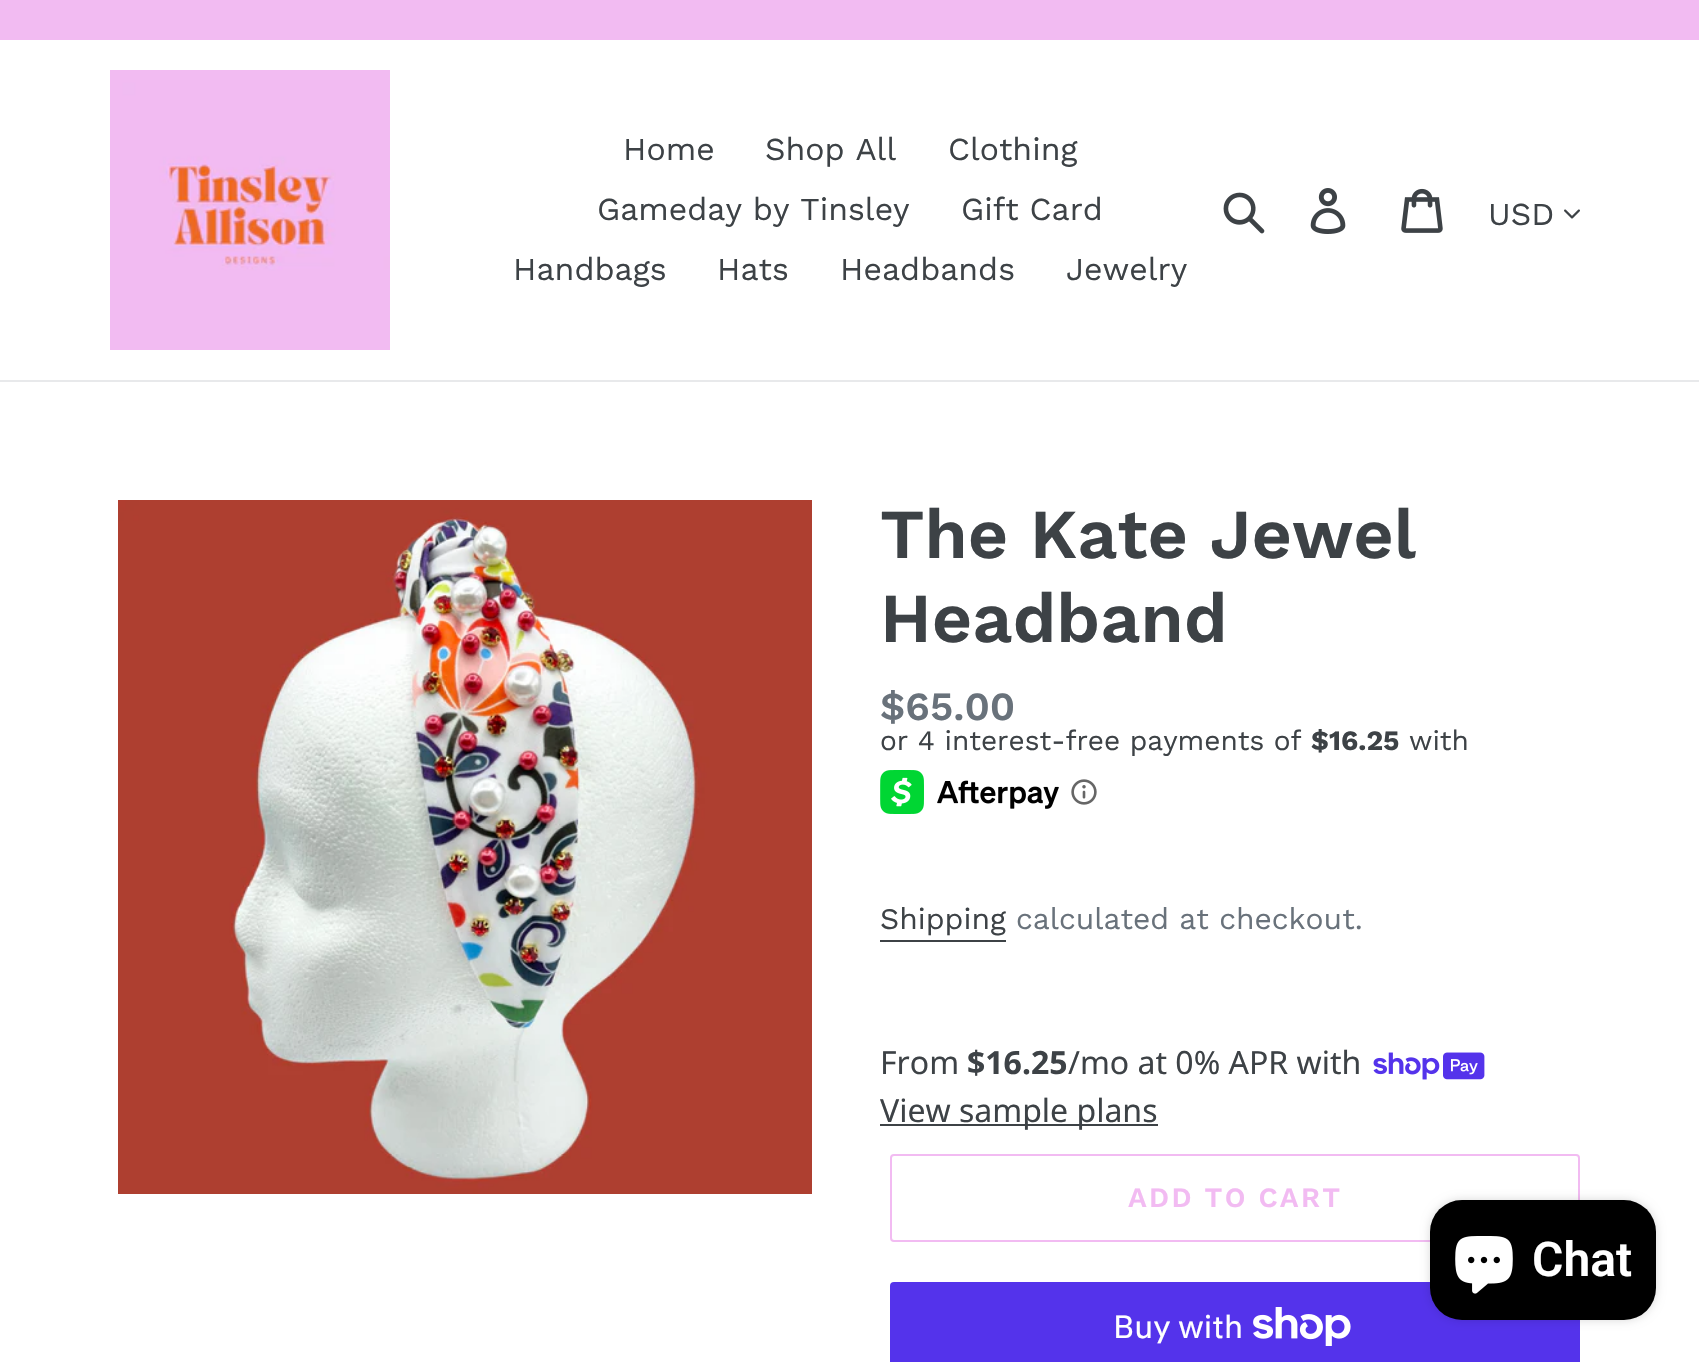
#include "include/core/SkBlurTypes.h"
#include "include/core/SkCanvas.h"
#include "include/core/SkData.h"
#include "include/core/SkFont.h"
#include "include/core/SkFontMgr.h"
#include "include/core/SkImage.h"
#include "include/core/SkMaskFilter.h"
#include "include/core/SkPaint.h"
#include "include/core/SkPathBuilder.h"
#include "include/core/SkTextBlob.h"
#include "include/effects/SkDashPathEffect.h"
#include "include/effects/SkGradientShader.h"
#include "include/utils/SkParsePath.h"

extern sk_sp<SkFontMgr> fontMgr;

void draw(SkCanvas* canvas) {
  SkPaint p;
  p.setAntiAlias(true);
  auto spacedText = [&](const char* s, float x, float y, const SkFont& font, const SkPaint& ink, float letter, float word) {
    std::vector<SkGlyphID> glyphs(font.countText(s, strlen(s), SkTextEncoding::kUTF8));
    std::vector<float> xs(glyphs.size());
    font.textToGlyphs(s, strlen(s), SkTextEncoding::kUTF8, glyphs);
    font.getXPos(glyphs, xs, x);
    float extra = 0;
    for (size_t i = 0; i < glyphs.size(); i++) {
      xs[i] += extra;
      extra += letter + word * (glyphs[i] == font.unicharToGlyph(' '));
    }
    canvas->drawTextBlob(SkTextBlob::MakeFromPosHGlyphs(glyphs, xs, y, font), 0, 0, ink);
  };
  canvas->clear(SK_ColorWHITE);
  p.setColor(SkColorSetRGB(242, 187, 242));
  canvas->drawRect(SkRect::MakeLTRB(0, 0, 1699, 40), p);
  p.setColor(SkColorSetRGB(232, 233, 235));
  canvas->drawRect(SkRect::MakeLTRB(0, 380, 1699, 382), p);
  canvas->drawImageRect(SkImages::DeferredFromEncodedData(SkData::MakeFromFileName("images/1.png")), SkRect::MakeLTRB(110, 70, 390, 350), SkSamplingOptions());
  canvas->drawImageRect(SkImages::DeferredFromEncodedData(SkData::MakeFromFileName("images/2.png")), SkRect::MakeLTRB(1223, 192, 1265, 234), SkSamplingOptions());
  canvas->drawImageRect(SkImages::DeferredFromEncodedData(SkData::MakeFromFileName("images/3.png")), SkRect::MakeLTRB(1310, 188, 1346, 234), SkSamplingOptions());
  canvas->drawImageRect(SkImages::DeferredFromEncodedData(SkData::MakeFromFileName("images/4.png")), SkRect::MakeLTRB(1401, 188, 1443, 233), SkSamplingOptions());
  canvas->drawImageRect(SkImages::DeferredFromEncodedData(SkData::MakeFromFileName("images/5.png")), SkRect::MakeLTRB(1564, 209, 1580, 219), SkSamplingOptions());
  canvas->drawImageRect(SkImages::DeferredFromEncodedData(SkData::MakeFromFileName("images/6.png")), SkRect::MakeLTRB(118, 500, 812, 1194), SkSamplingOptions());
  canvas->drawImageRect(SkImages::DeferredFromEncodedData(SkData::MakeFromFileName("images/7.png")), SkRect::MakeLTRB(880, 770, 1059, 814), SkSamplingOptions());
  canvas->drawImageRect(SkImages::DeferredFromEncodedData(SkData::MakeFromFileName("images/8.png")), SkRect::MakeLTRB(1071, 779, 1097, 805), SkSamplingOptions());
  p.setColor(SkColorSetRGB(61, 66, 70));
  canvas->drawRect(SkRect::MakeLTRB(880, 940, 1006, 942), p);
  canvas->drawImageRect(SkImages::DeferredFromEncodedData(SkData::MakeFromFileName("images/9.png")), SkRect::MakeLTRB(1373, 1052, 1485, 1080), SkSamplingOptions());
  canvas->drawRect(SkRect::MakeLTRB(880, 1124, 1158, 1126), p);
  p.setStyle(SkPaint::kStroke_Style);
  p.setStrokeWidth(2);
  p.setColor(SkColorSetRGB(242, 187, 242));
  canvas->drawRoundRect(SkRect::MakeLTRB(891, 1155, 1579, 1241), 3, 3, p);
  p.setStyle(SkPaint::kFill_Style);
  p.setColor(SkColorSetRGB(84, 51, 235));
  canvas->drawRoundRect(SkRect::MakeLTRB(890, 1282, 1580, 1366), 4, 4, p);
  canvas->drawImageRect(SkImages::DeferredFromEncodedData(SkData::MakeFromFileName("images/10.png")), SkRect::MakeLTRB(1253, 1307, 1351, 1346), SkSamplingOptions());
  p.setColor(SkColorSetARGB(38, 0, 0, 0));
  p.setMaskFilter(SkMaskFilter::MakeBlur(kNormal_SkBlurStyle, 5));
  canvas->drawRoundRect(SkRect::MakeLTRB(1430, 1200, 1656, 1320), 32, 32, p);
  p.setMaskFilter(nullptr);
  p.setColor(SK_ColorBLACK);
  canvas->drawRoundRect(SkRect::MakeLTRB(1430, 1200, 1656, 1320), 32, 32, p);
  canvas->drawImageRect(SkImages::DeferredFromEncodedData(SkData::MakeFromFileName("images/11.png")), SkRect::MakeLTRB(1455, 1236, 1513, 1294), SkSamplingOptions());
  SkFont font1(fontMgr->matchFamilyStyle("Work Sans", SkFontStyle::Normal()), 32);
  font1.setSubpixel(true);
  p.setColor(SkColorSetRGB(61, 66, 70));
  canvas->drawString("Home", 623, 160, font1, p);
  canvas->drawString("Shop All", 765, 160, font1, p);
  canvas->drawString("Clothing", 948, 160, font1, p);
  canvas->drawString("Gameday by Tinsley", 597, 220, font1, p);
  canvas->drawString("Gift Card", 961, 220, font1, p);
  canvas->drawString("Handbags", 513, 280, font1, p);
  canvas->drawString("Hats", 717, 280, font1, p);
  canvas->drawString("Headbands", 840, 280, font1, p);
  canvas->drawString("Jewelry", 1066, 280, font1, p);
  canvas->drawString("USD", 1488, 225, font1, p);
  SkFont font2(fontMgr->matchFamilyStyle("Work Sans", SkFontStyle(600, SkFontStyle::kNormal_Width, SkFontStyle::kUpright_Slant)), 70);
  font2.setSubpixel(true);
  canvas->drawString("The Kate Jewel", 880, 558, font2, p);
  canvas->drawString("Headband", 880, 642, font2, p);
  SkFont font3(fontMgr->matchFamilyStyle("Work Sans", SkFontStyle(600, SkFontStyle::kNormal_Width, SkFontStyle::kUpright_Slant)), 40);
  font3.setSubpixel(true);
  p.setColor(SkColorSetRGB(105, 114, 123));
  canvas->drawString("$65.00", 880, 720, font3, p);
  SkFont font4(fontMgr->matchFamilyStyle("Work Sans", SkFontStyle::Normal()), 28);
  font4.setSubpixel(true);
  p.setColor(SkColorSetRGB(61, 66, 70));
  canvas->drawString("or 4 interest-free payments of", 880, 750, font4, p);
  SkFont font5(fontMgr->matchFamilyStyle("Work Sans", SkFontStyle::Bold()), 28);
  font5.setSubpixel(true);
  canvas->drawString("$16.25", 1311, 750, font5, p);
  canvas->drawString("with", 1409, 750, font4, p);
  SkFont font6(fontMgr->matchFamilyStyle("Work Sans", SkFontStyle::Normal()), 30);
  font6.setSubpixel(true);
  canvas->drawString("Shipping", 880, 929, font6, p);
  p.setColor(SkColorSetRGB(105, 114, 123));
  canvas->drawString("calculated at checkout.", 1016, 929, font6, p);
  SkFont font7(fontMgr->matchFamilyStyle("Noto Sans", SkFontStyle::Normal()), 32);
  font7.setSubpixel(true);
  p.setColor(SkColorSetRGB(61, 66, 70));
  canvas->drawString("From", 880, 1074, font7, p);
  SkFont font8(fontMgr->matchFamilyStyle("Noto Sans", SkFontStyle::Bold()), 32);
  font8.setSubpixel(true);
  canvas->drawString("$16.25", 967, 1074, font8, p);
  canvas->drawString("/mo at 0% APR with", 1068, 1074, font7, p);
  canvas->drawString("View sample plans", 880, 1122, font7, p);
  SkFont font9(fontMgr->matchFamilyStyle("Work Sans", SkFontStyle(600, SkFontStyle::kNormal_Width, SkFontStyle::kUpright_Slant)), 28);
  font9.setSubpixel(true);
  p.setColor(SkColorSetRGB(242, 187, 242));
  spacedText("ADD TO CART", 1128, 1207, font9, p, 2.25f, 0);
  SkFont font10(fontMgr->matchFamilyStyle("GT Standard", SkFontStyle::Normal()), 32);
  font10.setSubpixel(true);
  p.setColor(SK_ColorWHITE);
  canvas->drawString("Buy with", 1113, 1338, font10, p);
  SkFont font11(fontMgr->matchFamilyStyle("Roboto", SkFontStyle(600, SkFontStyle::kNormal_Width, SkFontStyle::kUpright_Slant)), 48);
  font11.setSubpixel(true);
  canvas->drawString("Chat", 1532, 1276, font11, p);
}
